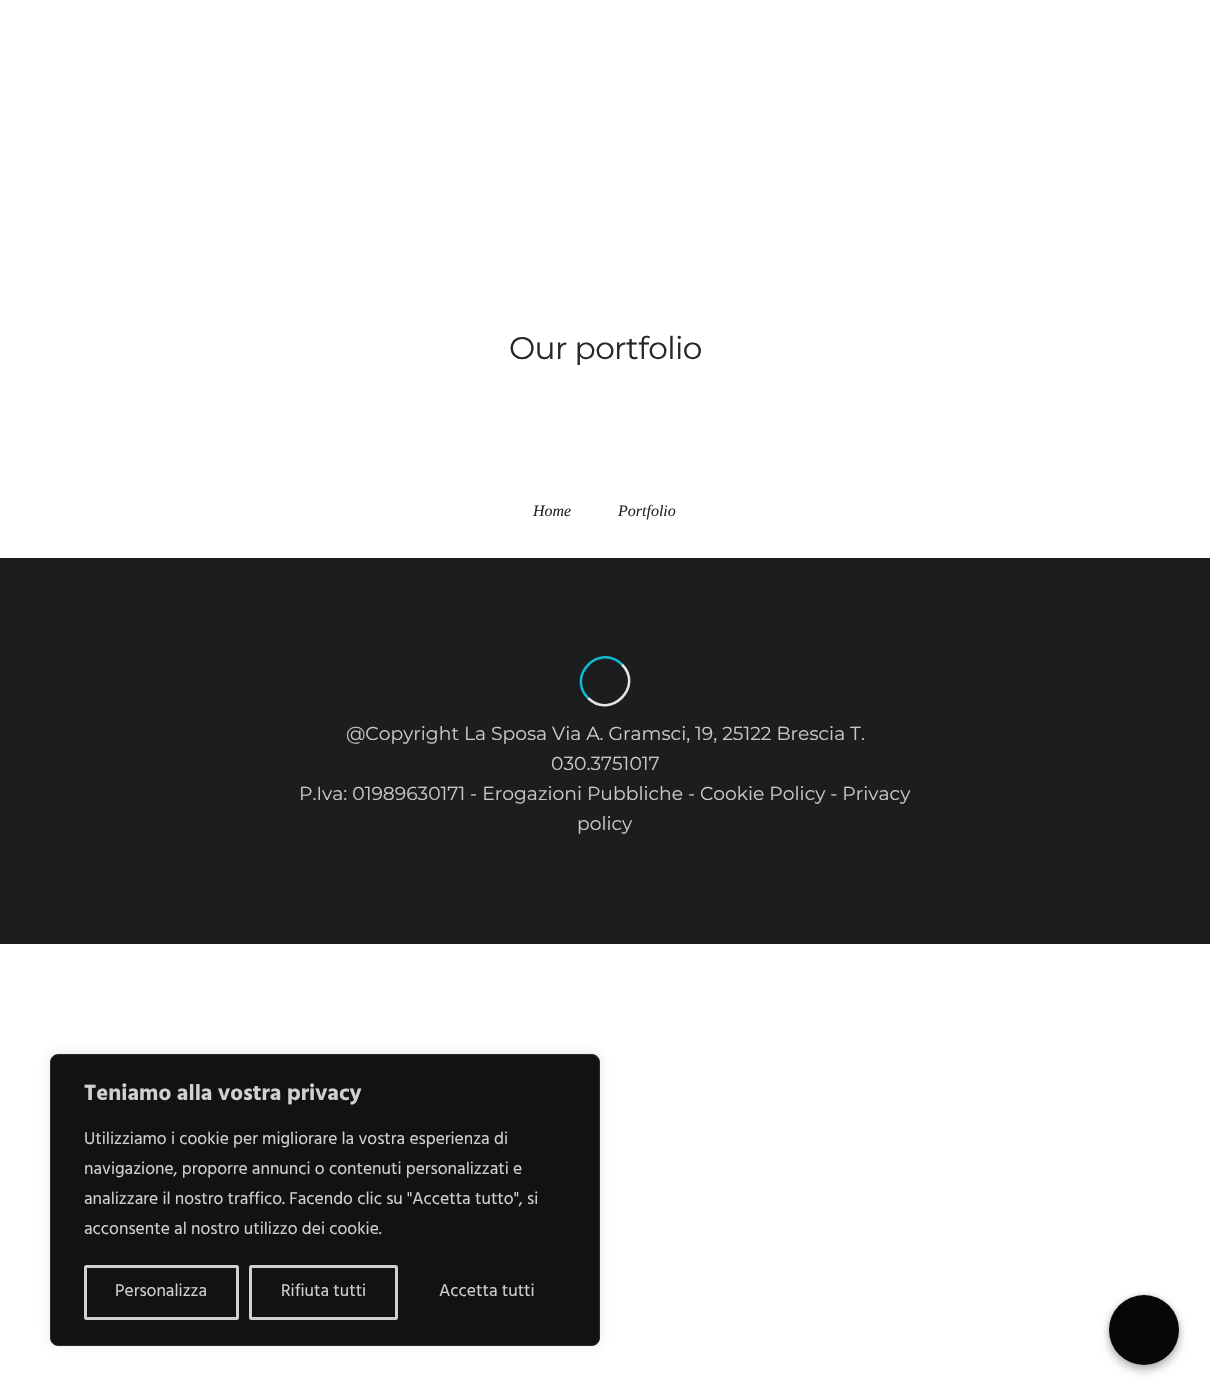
#include "include/core/SkBlurTypes.h"
#include "include/core/SkCanvas.h"
#include "include/core/SkData.h"
#include "include/core/SkFont.h"
#include "include/core/SkFontMgr.h"
#include "include/core/SkImage.h"
#include "include/core/SkMaskFilter.h"
#include "include/core/SkPaint.h"
#include "include/core/SkPathBuilder.h"
#include "include/core/SkTextBlob.h"
#include "include/effects/SkDashPathEffect.h"
#include "include/effects/SkGradientShader.h"
#include "include/utils/SkParsePath.h"

extern sk_sp<SkFontMgr> fontMgr;

void draw(SkCanvas* canvas) {
  SkPaint p;
  p.setAntiAlias(true);
  auto spacedText = [&](const char* s, float x, float y, const SkFont& font, const SkPaint& ink, float letter, float word) {
    std::vector<SkGlyphID> glyphs(font.countText(s, strlen(s), SkTextEncoding::kUTF8));
    std::vector<float> xs(glyphs.size());
    font.textToGlyphs(s, strlen(s), SkTextEncoding::kUTF8, glyphs);
    font.getXPos(glyphs, xs, x);
    float extra = 0;
    for (size_t i = 0; i < glyphs.size(); i++) {
      xs[i] += extra;
      extra += letter + word * (glyphs[i] == font.unicharToGlyph(' '));
    }
    canvas->drawTextBlob(SkTextBlob::MakeFromPosHGlyphs(glyphs, xs, y, font), 0, 0, ink);
  };
  canvas->clear(SK_ColorWHITE);
  p.setColor(SkColorSetRGB(28, 29, 31));
  canvas->drawRect(SkRect::MakeLTRB(0, 558, 1210, 944), p);
  p.setStyle(SkPaint::kStroke_Style);
  p.setStrokeWidth(2.5f);
  p.setColor(SkColorSetRGB(229, 229, 229));
  canvas->drawPath(SkPathBuilder().moveTo(622, 664.5f).cubicTo(644, 686.5f, 610.5f, 720, 588, 698).detach(), p);
  p.setColor(SkColorSetRGB(16, 184, 210));
  canvas->drawPath(SkPathBuilder().moveTo(588, 698).cubicTo(566, 676, 599.5f, 642.5f, 622, 664.5f).detach(), p);
  p.setStyle(SkPaint::kFill_Style);
  p.setColor(SkColorSetARGB(77, 172, 171, 171));
  p.setMaskFilter(SkMaskFilter::MakeBlur(kNormal_SkBlurStyle, 6));
  canvas->drawRoundRect(SkRect::MakeLTRB(50, 1053, 600, 1345), 8, 8, p);
  p.setMaskFilter(nullptr);
  p.setColor(SkColorSetRGB(18, 18, 18));
  canvas->drawRoundRect(SkRect::MakeLTRB(50.5f, 1054.5f, 599.5f, 1345.5f), 7.5f, 7.5f, p);
  p.setStyle(SkPaint::kStroke_Style);
  p.setStrokeWidth(1);
  p.setColor(SkColorSetRGB(42, 42, 42));
  canvas->drawRoundRect(SkRect::MakeLTRB(50.5f, 1054.5f, 599.5f, 1345.5f), 7.5f, 7.5f, p);
  p.setStrokeWidth(3);
  p.setColor(SkColorSetRGB(208, 208, 208));
  canvas->drawRoundRect(SkRect::MakeLTRB(85.5f, 1266.5f, 237.5f, 1318.5f), 1, 1, p);
  canvas->drawRoundRect(SkRect::MakeLTRB(250.5f, 1266.5f, 396.5f, 1318.5f), 1, 1, p);
  p.setStyle(SkPaint::kFill_Style);
  p.setColor(SkColorSetARGB(71, 0, 0, 0));
  p.setMaskFilter(SkMaskFilter::MakeBlur(kNormal_SkBlurStyle, 5));
  canvas->drawRoundRect(SkRect::MakeLTRB(1109, 1300, 1179, 1370), 35, 35, p);
  p.setMaskFilter(nullptr);
  p.setColor(SkColorSetARGB(36, 0, 0, 0));
  p.setMaskFilter(SkMaskFilter::MakeBlur(kNormal_SkBlurStyle, 2.5f));
  canvas->drawRoundRect(SkRect::MakeLTRB(1109, 1295, 1179, 1365), 35, 35, p);
  p.setMaskFilter(nullptr);
  p.setColor(SkColorSetRGB(7, 7, 7));
  canvas->drawCircle(1144, 1330, 35, p);
  SkFont font1(fontMgr->matchFamilyStyle("Montserrat", SkFontStyle::Normal()), 31.25f);
  font1.setSubpixel(true);
  p.setColor(SkColorSetRGB(40, 38, 43));
  spacedText("Our portfolio", 509, 359, font1, p, -0.6f, 0);
  SkFont font2(fontMgr->matchFamilyStyle("Liberation Serif", SkFontStyle::Italic()), 16);
  font2.setSubpixel(true);
  canvas->drawString("Home", 533, 516, font2, p);
  canvas->drawString("Portfolio", 618, 516, font2, p);
  SkFont font3(fontMgr->matchFamilyStyle("Montserrat", SkFontStyle::Normal()), 18.75f);
  font3.setSubpixel(true);
  p.setColor(SkColorSetRGB(198, 199, 199));
  canvas->drawString("@Copyright La Sposa Via A. Gramsci, 19, 25122 Brescia T.", 346, 740, font3, p);
  canvas->drawString("030.3751017", 551, 770, font3, p);
  canvas->drawString("P.Iva: 01989630171 - Erogazioni Pubbliche - Cookie Policy - Privacy", 299, 800, font3, p);
  canvas->drawString("policy", 577, 830, font3, p);
  SkFont font4(fontMgr->matchFamilyStyle("Hind", SkFontStyle::Bold()), 22.5f);
  font4.setSubpixel(true);
  p.setColor(SkColorSetRGB(208, 208, 208));
  canvas->drawString("Teniamo alla vostra privacy", 84, 1100, font4, p);
  SkFont font5(fontMgr->matchFamilyStyle("Hind", SkFontStyle::Normal()), 17.5f);
  font5.setSubpixel(true);
  canvas->drawString("Utilizziamo i cookie per migliorare la vostra esperienza di", 84, 1144, font5, p);
  canvas->drawString("navigazione, proporre annunci o contenuti personalizzati e", 84, 1174, font5, p);
  canvas->drawString("analizzare il nostro traffico. Facendo clic su \"Accetta tutto\", si", 84, 1204, font5, p);
  canvas->drawString("acconsente al nostro utilizzo dei cookie.", 84, 1234, font5, p);
  canvas->drawString("Personalizza", 115, 1296, font5, p);
  canvas->drawString("Rifiuta tutti", 281, 1296, font5, p);
  canvas->drawString("Accetta tutti", 439, 1296, font5, p);
}
